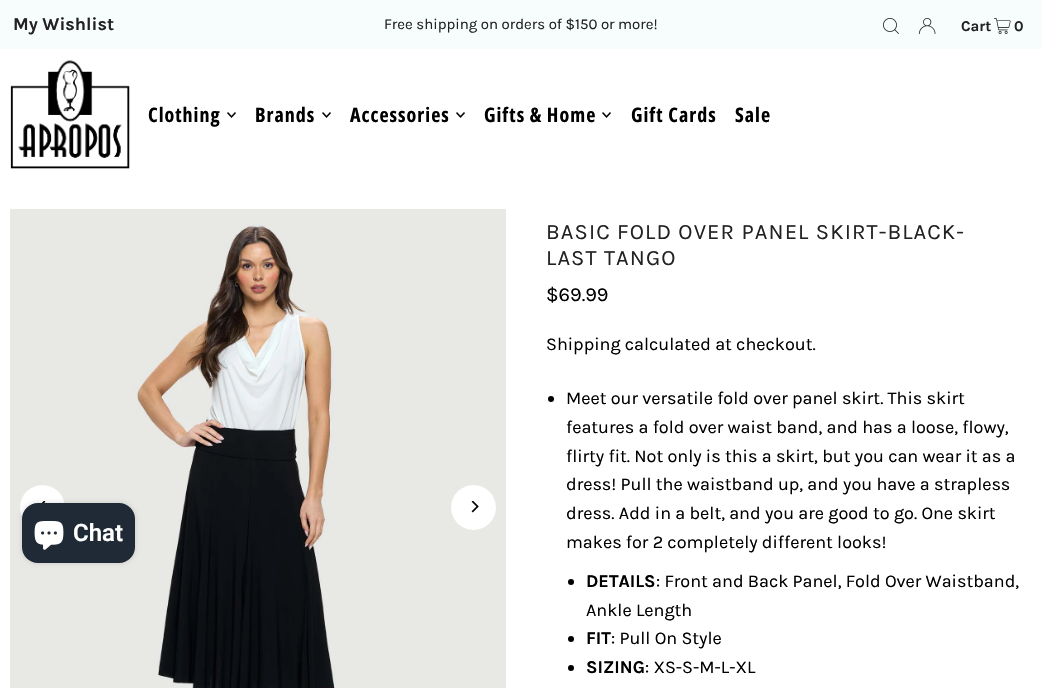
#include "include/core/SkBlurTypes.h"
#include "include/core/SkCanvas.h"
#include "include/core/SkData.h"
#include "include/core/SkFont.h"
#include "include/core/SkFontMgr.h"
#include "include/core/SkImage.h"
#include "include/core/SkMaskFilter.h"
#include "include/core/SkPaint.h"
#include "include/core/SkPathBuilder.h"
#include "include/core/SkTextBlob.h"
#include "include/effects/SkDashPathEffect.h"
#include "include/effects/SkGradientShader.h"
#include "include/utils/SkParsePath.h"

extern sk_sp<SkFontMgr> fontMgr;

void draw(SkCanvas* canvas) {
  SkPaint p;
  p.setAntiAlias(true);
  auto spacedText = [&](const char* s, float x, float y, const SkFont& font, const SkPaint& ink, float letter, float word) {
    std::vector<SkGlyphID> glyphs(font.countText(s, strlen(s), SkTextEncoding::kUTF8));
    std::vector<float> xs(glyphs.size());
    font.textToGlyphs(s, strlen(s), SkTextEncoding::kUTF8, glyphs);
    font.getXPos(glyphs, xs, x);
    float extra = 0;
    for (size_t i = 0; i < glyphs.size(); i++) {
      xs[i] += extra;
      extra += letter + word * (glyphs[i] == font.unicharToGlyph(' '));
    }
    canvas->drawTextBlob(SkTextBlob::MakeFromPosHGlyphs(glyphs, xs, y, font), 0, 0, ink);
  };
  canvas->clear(SK_ColorWHITE);
  p.setColor(SkColorSetRGB(247, 252, 252));
  canvas->drawRect(SkRect::MakeLTRB(0, 0, 1042, 49), p);
  canvas->drawImageRect(SkImages::DeferredFromEncodedData(SkData::MakeFromFileName("images/1.png")), SkRect::MakeLTRB(883, 18, 899, 34), SkSamplingOptions());
  canvas->drawImageRect(SkImages::DeferredFromEncodedData(SkData::MakeFromFileName("images/2.png")), SkRect::MakeLTRB(919, 18, 936, 34), SkSamplingOptions());
  canvas->drawImageRect(SkImages::DeferredFromEncodedData(SkData::MakeFromFileName("images/3.png")), SkRect::MakeLTRB(994, 18, 1011, 34), SkSamplingOptions());
  canvas->drawImageRect(SkImages::DeferredFromEncodedData(SkData::MakeFromFileName("images/4.png")), SkRect::MakeLTRB(10, 60, 130, 169), SkSamplingOptions());
  canvas->drawImageRect(SkImages::DeferredFromEncodedData(SkData::MakeFromFileName("images/5.png")), SkRect::MakeLTRB(227, 112, 236, 118), SkSamplingOptions());
  canvas->drawImageRect(SkImages::DeferredFromEncodedData(SkData::MakeFromFileName("images/5.png")), SkRect::MakeLTRB(322, 112, 331, 118), SkSamplingOptions());
  canvas->drawImageRect(SkImages::DeferredFromEncodedData(SkData::MakeFromFileName("images/5.png")), SkRect::MakeLTRB(456, 112, 465, 118), SkSamplingOptions());
  canvas->drawImageRect(SkImages::DeferredFromEncodedData(SkData::MakeFromFileName("images/5.png")), SkRect::MakeLTRB(602, 112, 611, 118), SkSamplingOptions());
  canvas->drawImageRect(SkImages::DeferredFromEncodedData(SkData::MakeFromFileName("images/6.png")), SkRect::MakeLTRB(10, 209, 506, 688), SkSamplingOptions());
  p.setColor(SK_ColorWHITE);
  canvas->drawCircle(42.5f, 507.5f, 22.5f, p);
  canvas->drawImageRect(SkImages::DeferredFromEncodedData(SkData::MakeFromFileName("images/7.png")), SkRect::MakeLTRB(41, 501, 46, 503), SkSamplingOptions());
  canvas->drawCircle(473.5f, 507.5f, 22.5f, p);
  canvas->drawImageRect(SkImages::DeferredFromEncodedData(SkData::MakeFromFileName("images/8.png")), SkRect::MakeLTRB(471, 501, 479, 513), SkSamplingOptions());
  p.setColor(SK_ColorBLACK);
  canvas->drawCircle(551, 399, 3, p);
  canvas->drawCircle(571, 582, 3, p);
  canvas->drawCircle(571, 639, 3, p);
  canvas->drawCircle(571, 668, 3, p);
  p.setColor(SkColorSetARGB(38, 0, 0, 0));
  p.setMaskFilter(SkMaskFilter::MakeBlur(kNormal_SkBlurStyle, 2.5f));
  canvas->drawRoundRect(SkRect::MakeLTRB(22, 503, 135, 563), 16, 16, p);
  p.setMaskFilter(nullptr);
  p.setColor(SkColorSetRGB(32, 42, 54));
  canvas->drawRoundRect(SkRect::MakeLTRB(22, 503, 135, 563), 16, 16, p);
  canvas->drawImageRect(SkImages::DeferredFromEncodedData(SkData::MakeFromFileName("images/9.png")), SkRect::MakeLTRB(34, 521, 64, 550), SkSamplingOptions());
  SkFont font1(fontMgr->matchFamilyStyle("Karla", SkFontStyle::Bold()), 18);
  font1.setSubpixel(true);
  p.setColor(SkColorSetRGB(34, 34, 34));
  canvas->drawString("My Wishlist", 13, 30, font1, p);
  SkFont font2(fontMgr->matchFamilyStyle("Karla", SkFontStyle::Normal()), 15);
  font2.setSubpixel(true);
  canvas->drawString("Free shipping on orders of $150 or more!", 384, 29, font2, p);
  SkFont font3(fontMgr->matchFamilyStyle("Karla", SkFontStyle::Bold()), 15);
  font3.setSubpixel(true);
  canvas->drawString("Cart", 961, 31, font3, p);
  canvas->drawString("0", 1014, 31, font3, p);
  SkFont font4(fontMgr->matchFamilyStyle("Open Sans Condensed", SkFontStyle::Bold()), 20);
  font4.setSubpixel(true);
  p.setColor(SK_ColorBLACK);
  spacedText("Clothing", 148, 122, font4, p, 1, 0);
  spacedText("Brands", 255, 122, font4, p, 1, 0);
  spacedText("Accessories", 350, 122, font4, p, 1, 0);
  spacedText("Gifts & Home", 484, 122, font4, p, 1, 0);
  spacedText("Gift Cards", 631, 122, font4, p, 1, 0);
  spacedText("Sale", 735, 122, font4, p, 1, 0);
  SkFont font5(fontMgr->matchFamilyStyle("Karla", SkFontStyle::Normal()), 22);
  font5.setSubpixel(true);
  p.setColor(SkColorSetRGB(34, 34, 34));
  spacedText("BASIC FOLD OVER PANEL SKIRT-BLACK-", 546, 239, font5, p, 1.1f, 0);
  spacedText("LAST TANGO", 546, 265, font5, p, 1.1f, 0);
  SkFont font6(fontMgr->matchFamilyStyle("Karla", SkFontStyle::Normal()), 20);
  font6.setSubpixel(true);
  p.setColor(SK_ColorBLACK);
  canvas->drawString("$69.99", 546, 301, font6, p);
  SkFont font7(fontMgr->matchFamilyStyle("Karla", SkFontStyle::Normal()), 18);
  font7.setSubpixel(true);
  canvas->drawString("Shipping calculated at checkout.", 546, 350, font7, p);
  canvas->drawString("Meet our versatile fold over panel skirt. This skirt", 566, 404, font7, p);
  canvas->drawString("features a fold over waist band, and has a loose, flowy,", 566, 433, font7, p);
  canvas->drawString("flirty fit. Not only is this a skirt, but you can wear it as a", 566, 462, font7, p);
  canvas->drawString("dress! Pull the waistband up, and you have a strapless", 566, 490, font7, p);
  canvas->drawString("dress. Add in a belt, and you are good to go. One skirt", 566, 519, font7, p);
  canvas->drawString("makes for 2 completely different looks!", 566, 548, font7, p);
  canvas->drawString("DETAILS", 586, 587, font1, p);
  canvas->drawString(": Front and Back Panel, Fold Over Waistband,", 656, 587, font7, p);
  canvas->drawString("Ankle Length", 586, 616, font7, p);
  canvas->drawString("FIT", 586, 644, font1, p);
  canvas->drawString(": Pull On Style", 611, 644, font7, p);
  canvas->drawString("SIZING", 586, 673, font1, p);
  canvas->drawString(": XS-S-M-L-XL", 645, 673, font7, p);
  SkFont font8(fontMgr->matchFamilyStyle("Roboto", SkFontStyle(600, SkFontStyle::kNormal_Width, SkFontStyle::kUpright_Slant)), 24);
  font8.setSubpixel(true);
  p.setColor(SK_ColorWHITE);
  canvas->drawString("Chat", 73, 541, font8, p);
}
